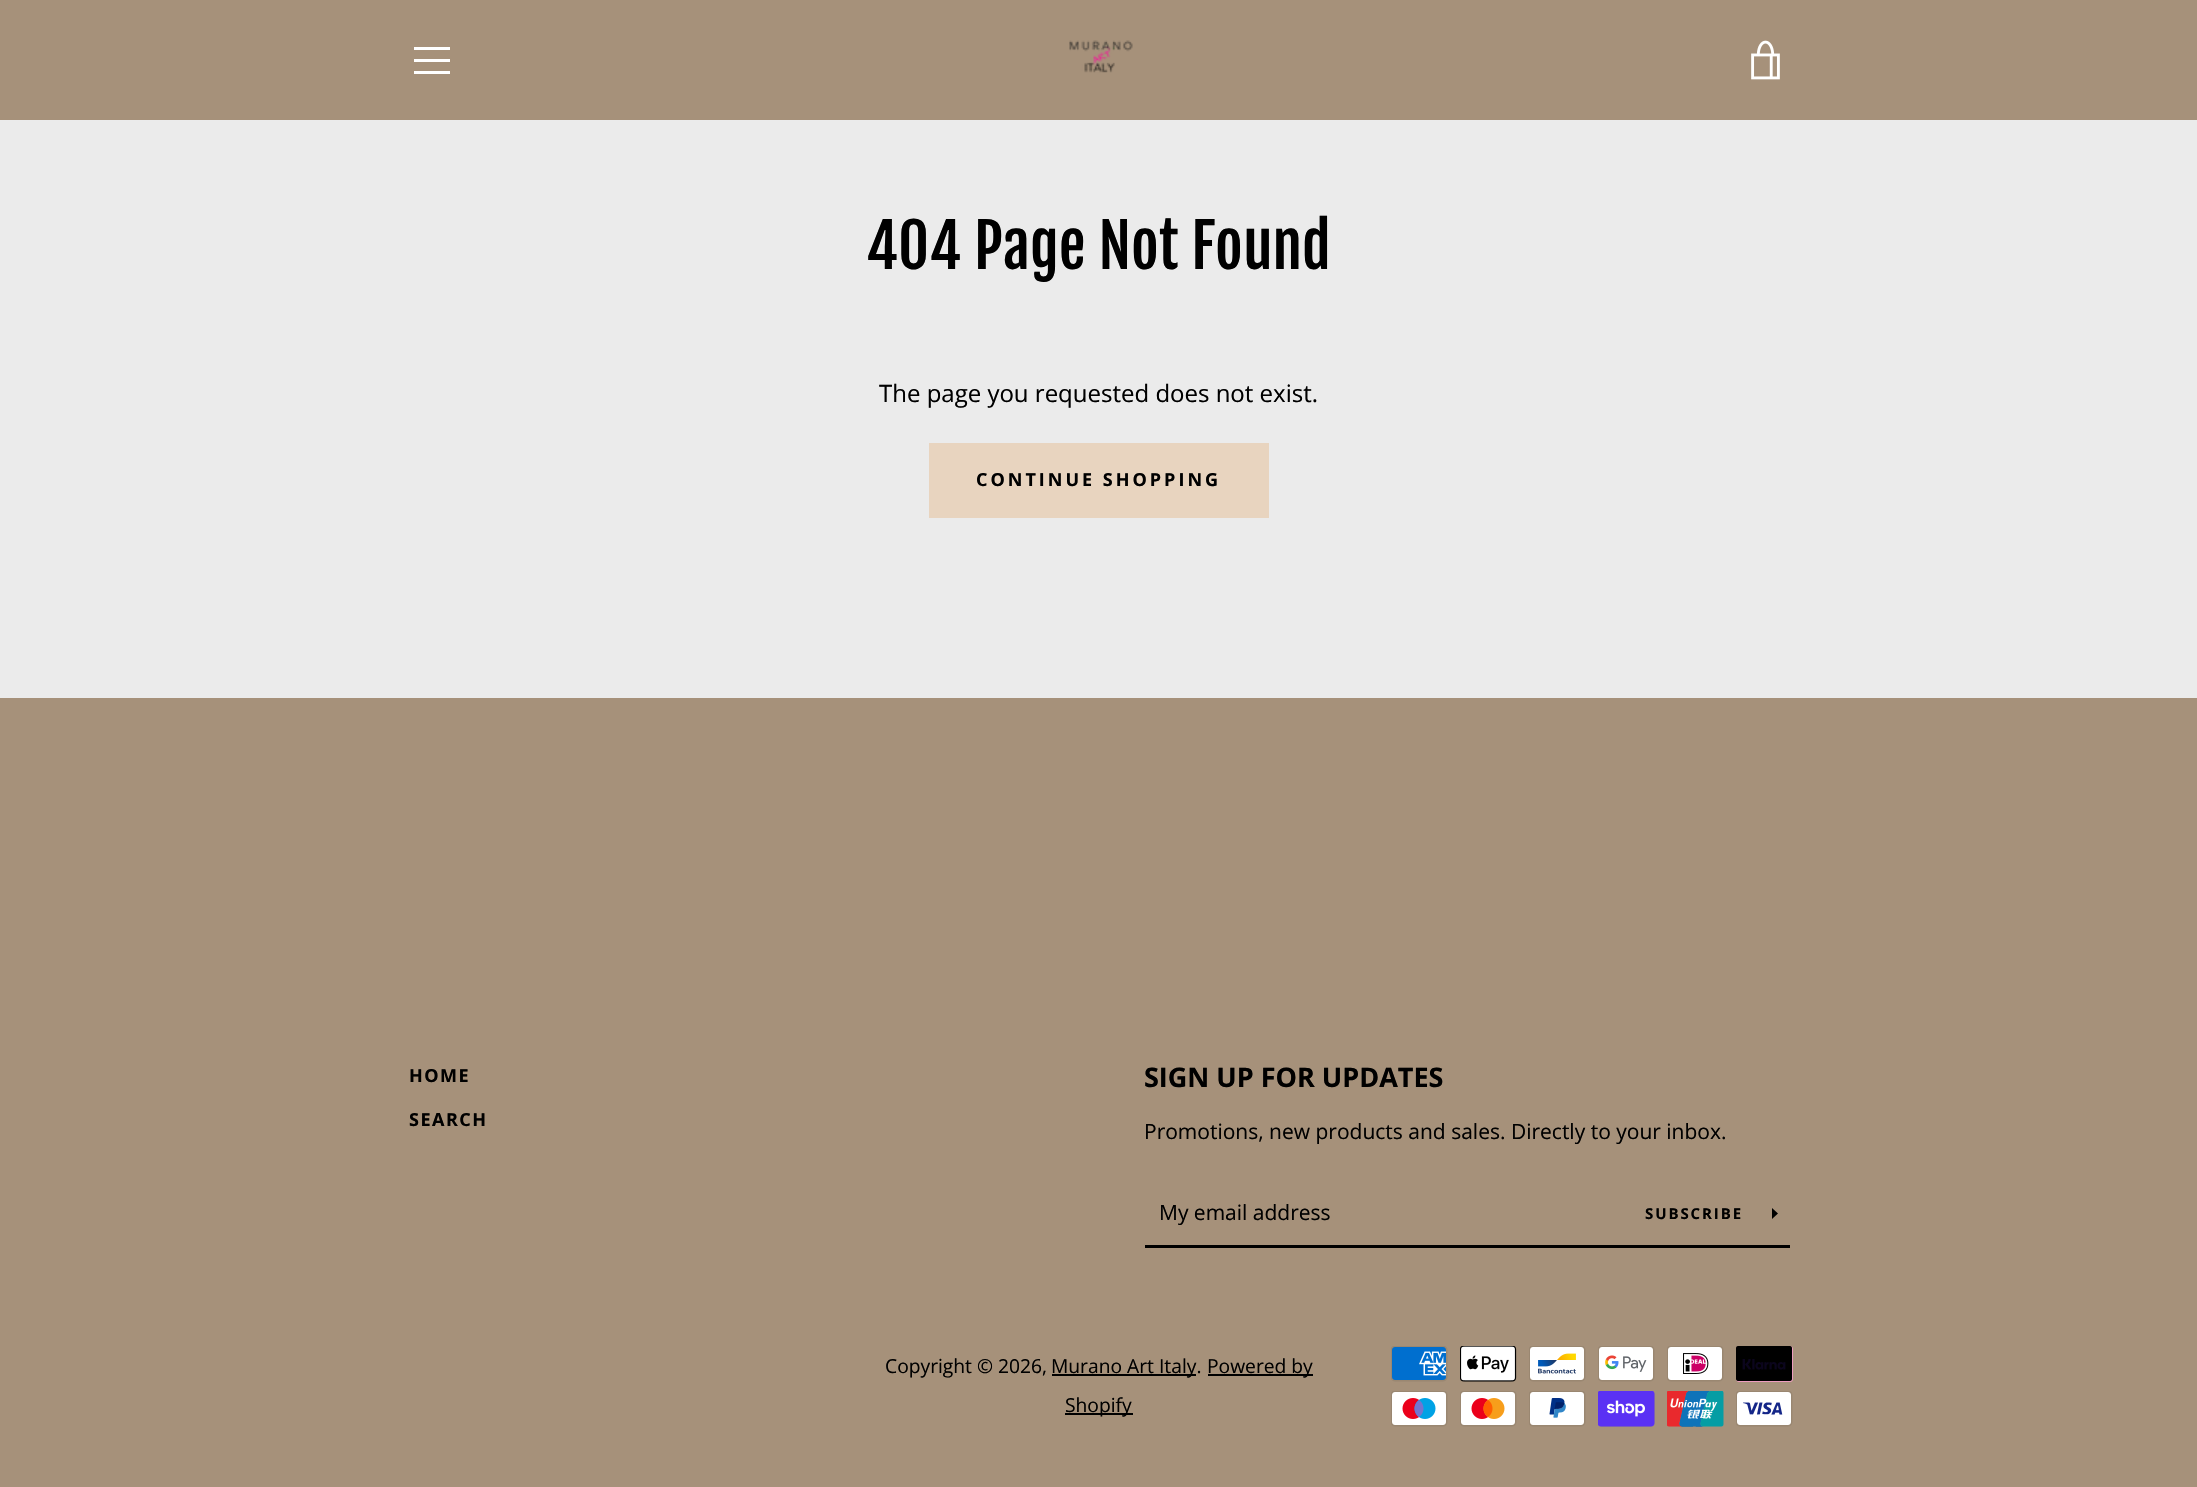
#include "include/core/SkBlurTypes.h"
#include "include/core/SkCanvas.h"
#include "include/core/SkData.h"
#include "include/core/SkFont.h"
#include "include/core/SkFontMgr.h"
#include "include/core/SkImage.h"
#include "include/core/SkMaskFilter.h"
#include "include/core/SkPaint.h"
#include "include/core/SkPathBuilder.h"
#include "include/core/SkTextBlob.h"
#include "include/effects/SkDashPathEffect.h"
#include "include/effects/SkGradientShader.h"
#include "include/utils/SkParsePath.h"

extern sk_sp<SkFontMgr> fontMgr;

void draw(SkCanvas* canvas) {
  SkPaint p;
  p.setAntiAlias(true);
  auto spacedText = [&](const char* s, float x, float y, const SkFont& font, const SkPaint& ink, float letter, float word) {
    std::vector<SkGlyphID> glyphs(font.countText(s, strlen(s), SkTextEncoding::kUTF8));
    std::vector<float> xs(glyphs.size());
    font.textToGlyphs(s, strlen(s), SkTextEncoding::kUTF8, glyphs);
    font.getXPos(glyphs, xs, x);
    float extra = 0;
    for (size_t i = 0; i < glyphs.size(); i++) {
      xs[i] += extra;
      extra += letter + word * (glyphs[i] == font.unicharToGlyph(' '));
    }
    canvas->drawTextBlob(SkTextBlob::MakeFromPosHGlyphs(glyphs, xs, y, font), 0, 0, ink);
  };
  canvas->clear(SkColorSetRGB(166, 145, 122));
  p.setColor(SkColorSetRGB(235, 235, 235));
  canvas->drawRect(SkRect::MakeLTRB(0, 120, 2197, 698), p);
  p.setColor(SK_ColorWHITE);
  canvas->drawRect(SkRect::MakeLTRB(414, 47, 450, 50), p);
  canvas->drawRect(SkRect::MakeLTRB(414, 59, 450, 62), p);
  canvas->drawRect(SkRect::MakeLTRB(414, 71, 450, 74), p);
  canvas->drawImageRect(SkImages::DeferredFromEncodedData(SkData::MakeFromFileName("images/1.png")), SkRect::MakeLTRB(1069, 40, 1133, 73), SkSamplingOptions());
  canvas->drawImageRect(SkImages::DeferredFromEncodedData(SkData::MakeFromFileName("images/2.png")), SkRect::MakeLTRB(1751, 40, 1780, 80), SkSamplingOptions());
  p.setColor(SkColorSetRGB(232, 212, 191));
  canvas->drawRect(SkRect::MakeLTRB(929, 443, 1269, 518), p);
  p.setColor(SK_ColorBLACK);
  canvas->drawRect(SkRect::MakeLTRB(1145, 1245, 1790, 1248), p);
  canvas->drawPath(SkPathBuilder().moveTo(1778, 1213.5f).lineTo(1772, 1219).lineTo(1772, 1208).close().detach(), p);
  canvas->drawRect(SkRect::MakeLTRB(1052, 1374, 1196, 1376), p);
  canvas->drawRect(SkRect::MakeLTRB(1208, 1374, 1313, 1376), p);
  canvas->drawRect(SkRect::MakeLTRB(1065, 1413, 1133, 1415), p);
  canvas->drawImageRect(SkImages::DeferredFromEncodedData(SkData::MakeFromFileName("images/3.png")), SkRect::MakeLTRB(1391, 1346, 1448, 1382), SkSamplingOptions());
  canvas->drawImageRect(SkImages::DeferredFromEncodedData(SkData::MakeFromFileName("images/4.png")), SkRect::MakeLTRB(1460, 1346, 1517, 1382), SkSamplingOptions());
  canvas->drawImageRect(SkImages::DeferredFromEncodedData(SkData::MakeFromFileName("images/5.png")), SkRect::MakeLTRB(1529, 1346, 1586, 1382), SkSamplingOptions());
  canvas->drawImageRect(SkImages::DeferredFromEncodedData(SkData::MakeFromFileName("images/6.png")), SkRect::MakeLTRB(1598, 1346, 1655, 1382), SkSamplingOptions());
  canvas->drawImageRect(SkImages::DeferredFromEncodedData(SkData::MakeFromFileName("images/7.png")), SkRect::MakeLTRB(1667, 1346, 1724, 1382), SkSamplingOptions());
  canvas->drawImageRect(SkImages::DeferredFromEncodedData(SkData::MakeFromFileName("images/8.png")), SkRect::MakeLTRB(1736, 1346, 1793, 1382), SkSamplingOptions());
  canvas->drawImageRect(SkImages::DeferredFromEncodedData(SkData::MakeFromFileName("images/9.png")), SkRect::MakeLTRB(1391, 1391, 1448, 1427), SkSamplingOptions());
  canvas->drawImageRect(SkImages::DeferredFromEncodedData(SkData::MakeFromFileName("images/10.png")), SkRect::MakeLTRB(1460, 1391, 1517, 1427), SkSamplingOptions());
  canvas->drawImageRect(SkImages::DeferredFromEncodedData(SkData::MakeFromFileName("images/11.png")), SkRect::MakeLTRB(1529, 1391, 1586, 1427), SkSamplingOptions());
  canvas->drawImageRect(SkImages::DeferredFromEncodedData(SkData::MakeFromFileName("images/12.png")), SkRect::MakeLTRB(1598, 1391, 1655, 1427), SkSamplingOptions());
  canvas->drawImageRect(SkImages::DeferredFromEncodedData(SkData::MakeFromFileName("images/13.png")), SkRect::MakeLTRB(1667, 1391, 1724, 1427), SkSamplingOptions());
  canvas->drawImageRect(SkImages::DeferredFromEncodedData(SkData::MakeFromFileName("images/14.png")), SkRect::MakeLTRB(1736, 1391, 1793, 1427), SkSamplingOptions());
  SkFont font1(fontMgr->matchFamilyStyle("Fjalla One", SkFontStyle::Normal()), 60);
  font1.setSubpixel(true);
  canvas->drawString("404 Page Not Found", 866, 269, font1, p);
  SkFont font2(fontMgr->matchFamilyStyle("Open Sans", SkFontStyle::Normal()), 24);
  font2.setSubpixel(true);
  canvas->drawString("The page you requested does not exist.", 879, 402, font2, p);
  SkFont font3(fontMgr->matchFamilyStyle("Open Sans", SkFontStyle::Bold()), 18);
  font3.setSubpixel(true);
  spacedText("CONTINUE SHOPPING", 976, 486, font3, p, 3, 0);
  spacedText("HOME", 409, 1082, font3, p, 1.5f, 0);
  spacedText("SEARCH", 409, 1126, font3, p, 1.5f, 0);
  SkFont font4(fontMgr->matchFamilyStyle("Open Sans", SkFontStyle::Bold()), 27);
  font4.setSubpixel(true);
  canvas->drawString("SIGN UP FOR UPDATES", 1144, 1087, font4, p);
  SkFont font5(fontMgr->matchFamilyStyle("Open Sans", SkFontStyle::Normal()), 21);
  font5.setSubpixel(true);
  canvas->drawString("Promotions, new products and sales. Directly to your inbox.", 1144, 1139, font5, p);
  canvas->drawString("My email address", 1159, 1220, font5, p);
  SkFont font6(fontMgr->matchFamilyStyle("Open Sans", SkFontStyle::Bold()), 15);
  font6.setSubpixel(true);
  spacedText("SUBSCRIBE", 1645, 1219, font6, p, 1.9f, 0);
  SkFont font7(fontMgr->matchFamilyStyle("Open Sans", SkFontStyle::Normal()), 19.25f);
  font7.setSubpixel(true);
  canvas->drawString("Copyright © 2026,", 885, 1373, font7, p);
  canvas->drawString("Murano Art Italy.", 1051, 1373, font7, p);
  canvas->drawString("Powered by", 1207, 1373, font7, p);
  canvas->drawString("Shopify", 1065, 1412, font7, p);
}
